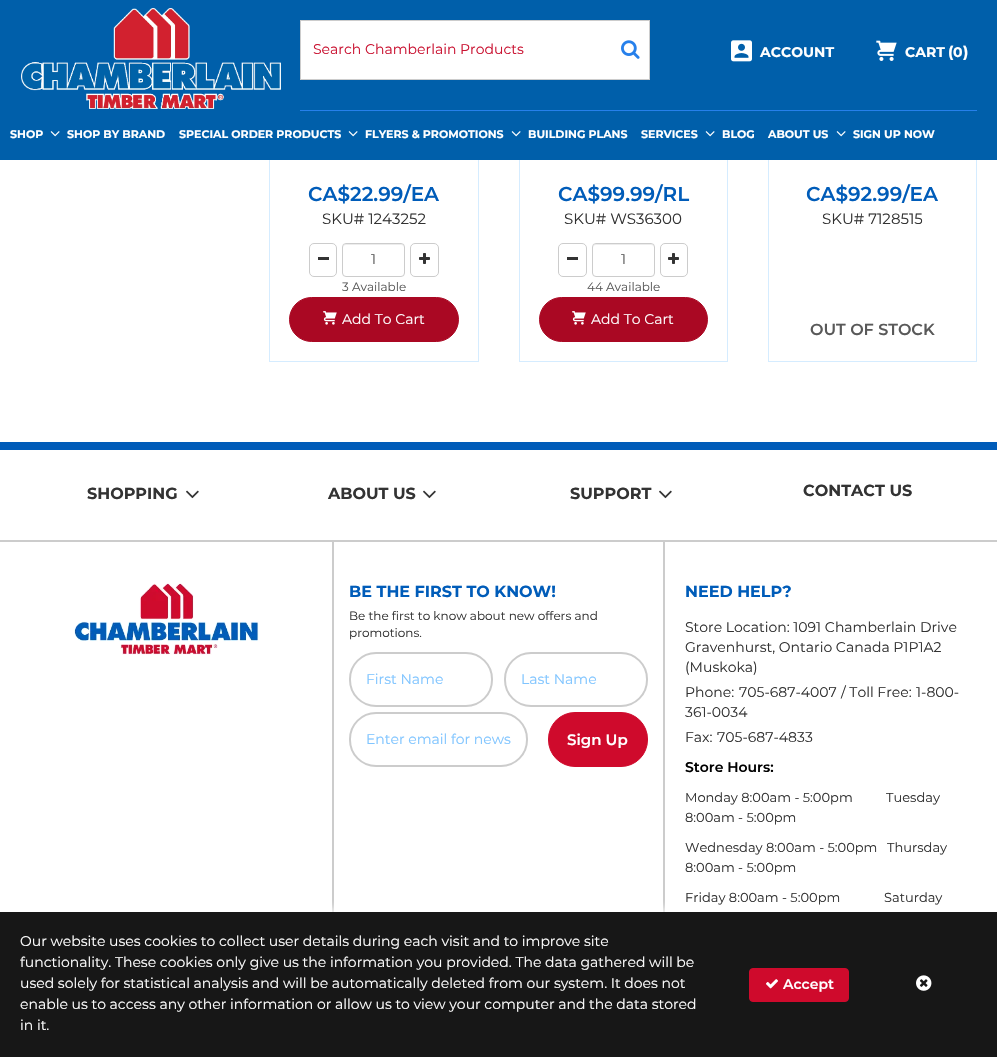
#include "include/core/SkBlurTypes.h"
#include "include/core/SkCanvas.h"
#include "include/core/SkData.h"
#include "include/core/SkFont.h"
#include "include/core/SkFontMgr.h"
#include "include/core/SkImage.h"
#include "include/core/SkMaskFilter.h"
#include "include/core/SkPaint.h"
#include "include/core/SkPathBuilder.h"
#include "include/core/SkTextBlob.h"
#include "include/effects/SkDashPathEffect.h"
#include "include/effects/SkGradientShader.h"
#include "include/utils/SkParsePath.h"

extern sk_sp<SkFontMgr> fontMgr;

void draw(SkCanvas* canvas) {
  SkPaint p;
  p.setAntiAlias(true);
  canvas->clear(SK_ColorWHITE);
  p.setStyle(SkPaint::kStroke_Style);
  p.setStrokeWidth(1);
  p.setColor(SkColorSetRGB(213, 236, 255));
  canvas->drawRect(SkRect::MakeLTRB(269.5f, -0.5f, 478.5f, 361.5f), p);
  canvas->drawRect(SkRect::MakeLTRB(519.5f, -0.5f, 727.5f, 361.5f), p);
  canvas->drawRect(SkRect::MakeLTRB(768.5f, -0.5f, 976.5f, 361.5f), p);
  p.setStyle(SkPaint::kFill_Style);
  p.setColor(SkColorSetRGB(0, 95, 170));
  canvas->drawRect(SkRect::MakeLTRB(0, 0, 997, 160), p);
  canvas->drawImageRect(SkImages::DeferredFromEncodedData(SkData::MakeFromFileName("images/1.png")), SkRect::MakeLTRB(21, 8, 281, 109), SkSamplingOptions());
  p.setColor(SK_ColorWHITE);
  canvas->drawRect(SkRect::MakeLTRB(300.5f, 20.5f, 649.5f, 79.5f), p);
  p.setStyle(SkPaint::kStroke_Style);
  p.setColor(SkColorSetRGB(204, 204, 204));
  canvas->drawRect(SkRect::MakeLTRB(300.5f, 20.5f, 649.5f, 79.5f), p);
  canvas->drawImageRect(SkImages::DeferredFromEncodedData(SkData::MakeFromFileName("images/2.png")), SkRect::MakeLTRB(621, 40, 640, 59), SkSamplingOptions());
  canvas->drawImageRect(SkImages::DeferredFromEncodedData(SkData::MakeFromFileName("images/3.png")), SkRect::MakeLTRB(731, 40, 752, 62), SkSamplingOptions());
  canvas->drawImageRect(SkImages::DeferredFromEncodedData(SkData::MakeFromFileName("images/4.png")), SkRect::MakeLTRB(876, 40, 897, 61), SkSamplingOptions());
  p.setStyle(SkPaint::kFill_Style);
  p.setColor(SkColorSetRGB(38, 128, 235));
  canvas->drawRect(SkRect::MakeLTRB(300, 110, 977, 111), p);
  canvas->drawImageRect(SkImages::DeferredFromEncodedData(SkData::MakeFromFileName("images/5.png")), SkRect::MakeLTRB(50, 131, 60, 137), SkSamplingOptions());
  canvas->drawImageRect(SkImages::DeferredFromEncodedData(SkData::MakeFromFileName("images/5.png")), SkRect::MakeLTRB(348, 131, 358, 137), SkSamplingOptions());
  canvas->drawImageRect(SkImages::DeferredFromEncodedData(SkData::MakeFromFileName("images/5.png")), SkRect::MakeLTRB(511, 131, 521, 137), SkSamplingOptions());
  canvas->drawImageRect(SkImages::DeferredFromEncodedData(SkData::MakeFromFileName("images/5.png")), SkRect::MakeLTRB(705, 131, 715, 137), SkSamplingOptions());
  canvas->drawImageRect(SkImages::DeferredFromEncodedData(SkData::MakeFromFileName("images/5.png")), SkRect::MakeLTRB(836, 131, 846, 137), SkSamplingOptions());
  p.setStyle(SkPaint::kStroke_Style);
  p.setColor(SkColorSetRGB(204, 204, 204));
  canvas->drawRoundRect(SkRect::MakeLTRB(309.5f, 243.5f, 336.5f, 276.5f), 4.5f, 4.5f, p);
  p.setStyle(SkPaint::kFill_Style);
  p.setColor(SkColorSetRGB(51, 51, 51));
  canvas->drawRect(SkRect::MakeLTRB(318, 257, 329, 260), p);
  p.setColor(SkColorSetRGB(236, 236, 236));
  canvas->drawPath(SkPathBuilder().moveTo(346, 245).lineTo(401, 245).cubicTo(403, 245, 404, 246, 404, 248).cubicTo(404, 242, 396, 244, 392, 244).lineTo(355, 244).cubicTo(351, 244, 343, 242, 343, 248).cubicTo(343, 246, 344, 245, 346, 245).close().detach(), p);
  p.setStyle(SkPaint::kStroke_Style);
  p.setColor(SkColorSetRGB(204, 204, 204));
  canvas->drawRoundRect(SkRect::MakeLTRB(342.5f, 243.5f, 404.5f, 276.5f), 3.5f, 3.5f, p);
  canvas->drawRoundRect(SkRect::MakeLTRB(410.5f, 243.5f, 438.5f, 276.5f), 4.5f, 4.5f, p);
  canvas->drawImageRect(SkImages::DeferredFromEncodedData(SkData::MakeFromFileName("images/6.png")), SkRect::MakeLTRB(419, 253, 430, 264), SkSamplingOptions());
  p.setStyle(SkPaint::kFill_Style);
  p.setColor(SkColorSetRGB(170, 8, 35));
  canvas->drawRoundRect(SkRect::MakeLTRB(289.5f, 297.5f, 458.5f, 341.5f), 22, 22, p);
  p.setStyle(SkPaint::kStroke_Style);
  canvas->drawRoundRect(SkRect::MakeLTRB(289.5f, 297.5f, 458.5f, 341.5f), 22, 22, p);
  canvas->drawImageRect(SkImages::DeferredFromEncodedData(SkData::MakeFromFileName("images/7.png")), SkRect::MakeLTRB(323, 311, 337, 325), SkSamplingOptions());
  p.setColor(SkColorSetRGB(204, 204, 204));
  canvas->drawRoundRect(SkRect::MakeLTRB(558.5f, 243.5f, 586.5f, 276.5f), 4.5f, 4.5f, p);
  p.setStyle(SkPaint::kFill_Style);
  p.setColor(SkColorSetRGB(51, 51, 51));
  canvas->drawRect(SkRect::MakeLTRB(567, 257, 578, 260), p);
  p.setColor(SkColorSetRGB(236, 236, 236));
  canvas->drawPath(SkPathBuilder().moveTo(596, 245).lineTo(651, 245).cubicTo(653, 245, 654, 246, 654, 248).cubicTo(654, 242, 646, 244, 642, 244).lineTo(605, 244).cubicTo(601, 244, 593, 242, 593, 248).cubicTo(593, 246, 594, 245, 596, 245).close().detach(), p);
  p.setStyle(SkPaint::kStroke_Style);
  p.setColor(SkColorSetRGB(204, 204, 204));
  canvas->drawRoundRect(SkRect::MakeLTRB(592.5f, 243.5f, 654.5f, 276.5f), 3.5f, 3.5f, p);
  canvas->drawRoundRect(SkRect::MakeLTRB(660.5f, 243.5f, 687.5f, 276.5f), 4.5f, 4.5f, p);
  canvas->drawImageRect(SkImages::DeferredFromEncodedData(SkData::MakeFromFileName("images/6.png")), SkRect::MakeLTRB(668, 253, 679, 264), SkSamplingOptions());
  p.setStyle(SkPaint::kFill_Style);
  p.setColor(SkColorSetRGB(170, 8, 35));
  canvas->drawRoundRect(SkRect::MakeLTRB(539.5f, 297.5f, 707.5f, 341.5f), 22, 22, p);
  p.setStyle(SkPaint::kStroke_Style);
  canvas->drawRoundRect(SkRect::MakeLTRB(539.5f, 297.5f, 707.5f, 341.5f), 22, 22, p);
  canvas->drawImageRect(SkImages::DeferredFromEncodedData(SkData::MakeFromFileName("images/7.png")), SkRect::MakeLTRB(572, 311, 586, 325), SkSamplingOptions());
  p.setStyle(SkPaint::kFill_Style);
  p.setColor(SkColorSetRGB(0, 92, 185));
  canvas->drawRect(SkRect::MakeLTRB(0, 442, 997, 450), p);
  canvas->drawImageRect(SkImages::DeferredFromEncodedData(SkData::MakeFromFileName("images/8.png")), SkRect::MakeLTRB(186, 490, 199, 499), SkSamplingOptions());
  canvas->drawImageRect(SkImages::DeferredFromEncodedData(SkData::MakeFromFileName("images/8.png")), SkRect::MakeLTRB(423, 490, 436, 499), SkSamplingOptions());
  canvas->drawImageRect(SkImages::DeferredFromEncodedData(SkData::MakeFromFileName("images/8.png")), SkRect::MakeLTRB(659, 490, 672, 499), SkSamplingOptions());
  p.setColor(SkColorSetRGB(204, 204, 204));
  canvas->drawRect(SkRect::MakeLTRB(0, 540, 997, 542), p);
  canvas->drawImageRect(SkImages::DeferredFromEncodedData(SkData::MakeFromFileName("images/9.png")), SkRect::MakeLTRB(74, 583, 259, 655), SkSamplingOptions());
  canvas->drawRect(SkRect::MakeLTRB(663, 542, 665, 912), p);
  canvas->drawRect(SkRect::MakeLTRB(332, 542, 334, 912), p);
  p.setStyle(SkPaint::kStroke_Style);
  p.setStrokeWidth(2);
  canvas->drawRoundRect(SkRect::MakeLTRB(350, 653, 492, 706), 26, 26, p);
  canvas->drawRoundRect(SkRect::MakeLTRB(505, 653, 647, 706), 26, 26, p);
  canvas->drawRoundRect(SkRect::MakeLTRB(350, 713, 527, 766), 26, 26, p);
  p.setStyle(SkPaint::kFill_Style);
  p.setColor(SkColorSetRGB(207, 10, 44));
  canvas->drawRoundRect(SkRect::MakeLTRB(548.5f, 712.5f, 647.5f, 766.5f), 26.5f, 26.5f, p);
  p.setStyle(SkPaint::kStroke_Style);
  p.setStrokeWidth(1);
  canvas->drawRoundRect(SkRect::MakeLTRB(548.5f, 712.5f, 647.5f, 766.5f), 26.5f, 26.5f, p);
  p.setStyle(SkPaint::kFill_Style);
  p.setColor(SK_ColorWHITE);
  p.setMaskFilter(SkMaskFilter::MakeBlur(kNormal_SkBlurStyle, 5));
  canvas->drawRect(SkRect::MakeLTRB(-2, 910, 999, 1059), p);
  p.setMaskFilter(nullptr);
  p.setColor(SkColorSetRGB(23, 23, 23));
  canvas->drawRect(SkRect::MakeLTRB(0, 912, 997, 1057), p);
  p.setColor(SkColorSetRGB(207, 10, 44));
  canvas->drawRoundRect(SkRect::MakeLTRB(749.5f, 968.5f, 848.5f, 1001.5f), 3.5f, 3.5f, p);
  p.setStyle(SkPaint::kStroke_Style);
  canvas->drawRoundRect(SkRect::MakeLTRB(749.5f, 968.5f, 848.5f, 1001.5f), 3.5f, 3.5f, p);
  canvas->drawImageRect(SkImages::DeferredFromEncodedData(SkData::MakeFromFileName("images/10.png")), SkRect::MakeLTRB(766, 979, 778, 989), SkSamplingOptions());
  canvas->drawImageRect(SkImages::DeferredFromEncodedData(SkData::MakeFromFileName("images/11.png")), SkRect::MakeLTRB(916, 975, 932, 991), SkSamplingOptions());
  SkFont font1(fontMgr->matchFamilyStyle("Montserrat", SkFontStyle::Normal()), 14);
  font1.setSubpixel(true);
  p.setStyle(SkPaint::kFill_Style);
  p.setColor(SkColorSetRGB(202, 19, 50));
  canvas->drawString("Search Chamberlain Products", 313, 54, font1, p);
  SkFont font2(fontMgr->matchFamilyStyle("Montserrat", SkFontStyle::Bold()), 14);
  font2.setSubpixel(true);
  p.setColor(SK_ColorWHITE);
  canvas->drawString("ACCOUNT", 760, 57, font2, p);
  canvas->drawString("CART", 905, 57, font2, p);
  SkFont font3(fontMgr->matchFamilyStyle("Montserrat", SkFontStyle::Bold()), 15);
  font3.setSubpixel(true);
  canvas->drawString("(", 948, 57, font3, p);
  canvas->drawString("0", 953, 57, font2, p);
  canvas->drawString(")", 963, 57, font3, p);
  SkFont font4(fontMgr->matchFamilyStyle("Montserrat", SkFontStyle::Bold()), 11);
  font4.setSubpixel(true);
  canvas->drawString("SHOP", 10, 138, font4, p);
  canvas->drawString("SHOP BY BRAND", 67, 138, font4, p);
  canvas->drawString("SPECIAL ORDER PRODUCTS", 179, 138, font4, p);
  canvas->drawString("FLYERS & PROMOTIONS", 365, 138, font4, p);
  canvas->drawString("BUILDING PLANS", 528, 138, font4, p);
  canvas->drawString("SERVICES", 641, 138, font4, p);
  canvas->drawString("BLOG", 722, 138, font4, p);
  canvas->drawString("ABOUT US", 768, 138, font4, p);
  canvas->drawString("SIGN UP NOW", 853, 138, font4, p);
  SkFont font5(fontMgr->matchFamilyStyle("Montserrat", SkFontStyle(600, SkFontStyle::kNormal_Width, SkFontStyle::kUpright_Slant)), 20);
  font5.setSubpixel(true);
  p.setColor(SkColorSetRGB(0, 92, 185));
  canvas->drawString("CA$22.99/EA", 308, 201, font5, p);
  SkFont font6(fontMgr->matchFamilyStyle("Montserrat", SkFontStyle::Normal()), 15);
  font6.setSubpixel(true);
  p.setColor(SkColorSetRGB(51, 51, 51));
  canvas->drawString("SKU# 1243252", 322, 224, font6, p);
  p.setColor(SkColorSetRGB(89, 89, 89));
  canvas->drawString("1", 371, 264, font1, p);
  SkFont font7(fontMgr->matchFamilyStyle("Montserrat", SkFontStyle::Normal()), 12);
  font7.setSubpixel(true);
  canvas->drawString("3 Available", 342, 291, font7, p);
  p.setColor(SK_ColorWHITE);
  canvas->drawString("Add To Cart", 342, 324, font1, p);
  p.setColor(SkColorSetRGB(0, 92, 185));
  canvas->drawString("CA$99.99/RL", 558, 201, font5, p);
  p.setColor(SkColorSetRGB(51, 51, 51));
  canvas->drawString("SKU# WS36300", 564, 224, font6, p);
  p.setColor(SkColorSetRGB(89, 89, 89));
  canvas->drawString("1", 621, 264, font1, p);
  canvas->drawString("44 Available", 587, 291, font7, p);
  p.setColor(SK_ColorWHITE);
  canvas->drawString("Add To Cart", 591, 324, font1, p);
  p.setColor(SkColorSetRGB(0, 92, 185));
  canvas->drawString("CA$92.99/EA", 806, 201, font5, p);
  p.setColor(SkColorSetRGB(51, 51, 51));
  canvas->drawString("SKU# 7128515", 822, 224, font6, p);
  SkFont font8(fontMgr->matchFamilyStyle("Montserrat", SkFontStyle(600, SkFontStyle::kNormal_Width, SkFontStyle::kUpright_Slant)), 16);
  font8.setSubpixel(true);
  p.setColor(SkColorSetRGB(89, 89, 89));
  canvas->drawString("OUT OF STOCK", 810, 335, font8, p);
  SkFont font9(fontMgr->matchFamilyStyle("Montserrat", SkFontStyle::Bold()), 16);
  font9.setSubpixel(true);
  p.setColor(SkColorSetRGB(51, 51, 51));
  canvas->drawString("SHOPPING", 87, 499, font9, p);
  canvas->drawString("ABOUT US", 328, 499, font9, p);
  canvas->drawString("SUPPORT", 570, 499, font9, p);
  canvas->drawString("CONTACT US", 803, 496, font9, p);
  p.setColor(SkColorSetRGB(0, 92, 185));
  canvas->drawString("BE THE FIRST TO KNOW!", 349, 597, font9, p);
  p.setColor(SkColorSetRGB(51, 51, 51));
  canvas->drawString("Be the first to know about new offers and", 349, 620, font7, p);
  canvas->drawString("promotions.", 349, 637, font7, p);
  p.setColor(SkColorSetRGB(128, 197, 255));
  canvas->drawString("First Name", 366, 684, font1, p);
  canvas->drawString("Last Name", 521, 684, font1, p);
  canvas->drawString("Enter email for news", 366, 744, font1, p);
  SkFont font10(fontMgr->matchFamilyStyle("Montserrat", SkFontStyle(600, SkFontStyle::kNormal_Width, SkFontStyle::kUpright_Slant)), 15);
  font10.setSubpixel(true);
  p.setColor(SK_ColorWHITE);
  canvas->drawString("Sign Up", 567, 745, font10, p);
  p.setColor(SkColorSetRGB(0, 92, 185));
  canvas->drawString("NEED HELP?", 685, 597, font9, p);
  p.setColor(SkColorSetRGB(51, 51, 51));
  canvas->drawString("Store Location: 1091 Chamberlain Drive", 685, 632, font1, p);
  canvas->drawString("Gravenhurst, Ontario Canada P1P1A2", 685, 652, font1, p);
  canvas->drawString("(Muskoka)", 685, 672, font1, p);
  canvas->drawString("Phone:", 685, 697, font1, p);
  canvas->drawString("705-687-4007", 739, 697, font1, p);
  canvas->drawString("/ Toll Free:", 841, 697, font1, p);
  canvas->drawString("1-800-", 916, 697, font1, p);
  canvas->drawString("361-0034", 685, 717, font1, p);
  canvas->drawString("Fax:", 685, 742, font1, p);
  canvas->drawString("705-687-4833", 717, 742, font1, p);
  SkFont font11(fontMgr->matchFamilyStyle("Montserrat", SkFontStyle(600, SkFontStyle::kNormal_Width, SkFontStyle::kUpright_Slant)), 14);
  font11.setSubpixel(true);
  p.setColor(SK_ColorBLACK);
  canvas->drawString("Store Hours:", 685, 772, font11, p);
  SkFont font12(fontMgr->matchFamilyStyle("Montserrat", SkFontStyle::Normal()), 13);
  font12.setSubpixel(true);
  p.setColor(SkColorSetRGB(51, 51, 51));
  canvas->drawString("Monday 8:00am - 5:00pm", 685, 802, font12, p);
  canvas->drawString("Tuesday", 886, 802, font12, p);
  canvas->drawString("8:00am - 5:00pm", 685, 822, font12, p);
  canvas->drawString("Wednesday 8:00am - 5:00pm", 685, 852, font12, p);
  canvas->drawString("Thursday", 887, 852, font12, p);
  canvas->drawString("8:00am - 5:00pm", 685, 872, font12, p);
  canvas->drawString("Friday 8:00am - 5:00pm", 685, 902, font12, p);
  canvas->drawString("Saturday", 884, 902, font12, p);
  p.setColor(SK_ColorWHITE);
  canvas->drawString("Our website uses cookies to collect user details during each visit and to improve site", 20, 946, font1, p);
  canvas->drawString("functionality. These cookies only give us the information you provided. The data gathered will be", 20, 967, font1, p);
  canvas->drawString("used solely for statistical analysis and will be automatically deleted from our system. It does not", 20, 988, font1, p);
  canvas->drawString("enable us to access any other information or allow us to view your computer and the data stored", 20, 1009, font1, p);
  canvas->drawString("in it.", 20, 1030, font1, p);
  canvas->drawString("Accept", 783, 989, font11, p);
}
